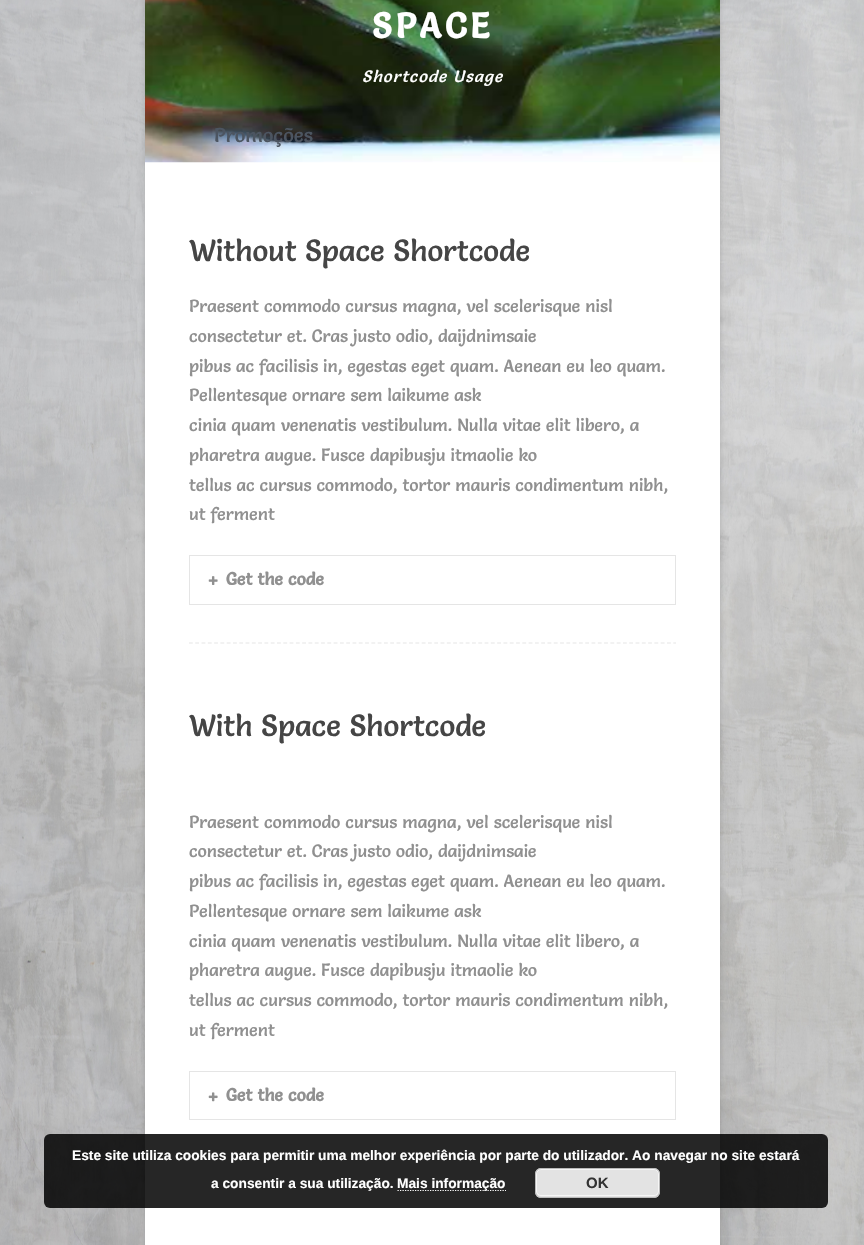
#include "include/core/SkBlurTypes.h"
#include "include/core/SkCanvas.h"
#include "include/core/SkData.h"
#include "include/core/SkFont.h"
#include "include/core/SkFontMgr.h"
#include "include/core/SkImage.h"
#include "include/core/SkMaskFilter.h"
#include "include/core/SkPaint.h"
#include "include/core/SkPathBuilder.h"
#include "include/core/SkTextBlob.h"
#include "include/effects/SkDashPathEffect.h"
#include "include/effects/SkGradientShader.h"
#include "include/utils/SkParsePath.h"

extern sk_sp<SkFontMgr> fontMgr;

void draw(SkCanvas* canvas) {
  SkPaint p;
  p.setAntiAlias(true);
  auto spacedText = [&](const char* s, float x, float y, const SkFont& font, const SkPaint& ink, float letter, float word) {
    std::vector<SkGlyphID> glyphs(font.countText(s, strlen(s), SkTextEncoding::kUTF8));
    std::vector<float> xs(glyphs.size());
    font.textToGlyphs(s, strlen(s), SkTextEncoding::kUTF8, glyphs);
    font.getXPos(glyphs, xs, x);
    float extra = 0;
    for (size_t i = 0; i < glyphs.size(); i++) {
      xs[i] += extra;
      extra += letter + word * (glyphs[i] == font.unicharToGlyph(' '));
    }
    canvas->drawTextBlob(SkTextBlob::MakeFromPosHGlyphs(glyphs, xs, y, font), 0, 0, ink);
  };
  canvas->clear(SK_ColorWHITE);
  canvas->drawImageRect(SkImages::DeferredFromEncodedData(SkData::MakeFromFileName("images/1.png")), SkRect::MakeLTRB(0, 0, 864, 1245), SkSamplingOptions());
  p.setColor(SkColorSetARGB(38, 0, 0, 0));
  p.setMaskFilter(SkMaskFilter::MakeBlur(kNormal_SkBlurStyle, 3));
  canvas->drawRect(SkRect::MakeLTRB(145, -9, 720, 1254), p);
  p.setMaskFilter(nullptr);
  p.setColor(SK_ColorWHITE);
  canvas->drawRect(SkRect::MakeLTRB(145, 162, 720, 1245), p);
  canvas->drawImageRect(SkImages::DeferredFromEncodedData(SkData::MakeFromFileName("images/2.png")), SkRect::MakeLTRB(145, 0, 720, 163), SkSamplingOptions());
  p.setStyle(SkPaint::kStroke_Style);
  p.setStrokeWidth(1);
  p.setColor(SkColorSetRGB(229, 229, 229));
  canvas->drawRect(SkRect::MakeLTRB(189.5f, 555.5f, 675.5f, 604.5f), p);
  canvas->drawImageRect(SkImages::DeferredFromEncodedData(SkData::MakeFromFileName("images/3.png")), SkRect::MakeLTRB(208, 576, 218, 585), SkSamplingOptions());
  p.setStrokeWidth(1.2f);
  p.setPathEffect(SkDashPathEffect::Make({{3.75f, 2.54f}}, 0));
  canvas->drawPath(SkPathBuilder().moveTo(189, 643).lineTo(676, 643).detach(), p);
  p.setPathEffect(nullptr);
  p.setStrokeWidth(1);
  canvas->drawRect(SkRect::MakeLTRB(189.5f, 1071.5f, 675.5f, 1119.5f), p);
  canvas->drawImageRect(SkImages::DeferredFromEncodedData(SkData::MakeFromFileName("images/4.png")), SkRect::MakeLTRB(208, 1092, 218, 1102), SkSamplingOptions());
  p.setStrokeWidth(1.2f);
  p.setPathEffect(SkDashPathEffect::Make({{3.75f, 2.54f}}, 0));
  canvas->drawPath(SkPathBuilder().moveTo(189, 1158).lineTo(676, 1158).detach(), p);
  p.setPathEffect(nullptr);
  p.setStyle(SkPaint::kFill_Style);
  p.setColor(SkColorSetARGB(217, 0, 0, 0));
  canvas->drawRoundRect(SkRect::MakeLTRB(44, 1134, 828, 1208), 6, 6, p);
  p.setStyle(SkPaint::kStroke_Style);
  p.setColor(SK_ColorWHITE);
  p.setPathEffect(SkDashPathEffect::Make({{1.25f, 1.25f}}, 0));
  canvas->drawPath(SkPathBuilder().moveTo(397.5f, 1190.5f).lineTo(506, 1190.5f).detach(), p);
  p.setPathEffect(nullptr);
  p.setStyle(SkPaint::kFill_Style);
  p.setColor(SkColorSetRGB(227, 227, 227));
  canvas->drawRoundRect(SkRect::MakeLTRB(535, 1168, 660, 1198), 6, 6, p);
  p.setStyle(SkPaint::kStroke_Style);
  p.setStrokeWidth(1);
  p.setColor(SkColorSetRGB(246, 246, 246));
  canvas->drawRoundRect(SkRect::MakeLTRB(536.5f, 1169.5f, 658.5f, 1195.5f), 4.5f, 4.5f, p);
  p.setColor(SkColorSetRGB(187, 187, 187));
  canvas->drawRoundRect(SkRect::MakeLTRB(535.5f, 1168.5f, 659.5f, 1197.5f), 5.5f, 5.5f, p);
  SkFont font1(fontMgr->matchFamilyStyle("Salsa", SkFontStyle::Bold()), 35);
  font1.setSubpixel(true);
  p.setStyle(SkPaint::kFill_Style);
  p.setColor(SK_ColorWHITE);
  spacedText("SPACE", 372, 38, font1, p, 3.75f, 0);
  SkFont font2(fontMgr->matchFamilyStyle("Salsa", SkFontStyle::Italic()), 16.25f);
  font2.setSubpixel(true);
  spacedText("Shortcode Usage", 362, 82, font2, p, 1.25f, 0);
  SkFont font3(fontMgr->matchFamilyStyle("Salsa", SkFontStyle::Normal()), 20);
  font3.setSubpixel(true);
  p.setColor(SkColorSetRGB(76, 85, 97));
  canvas->drawString("Promoções", 214, 142, font3, p);
  SkFont font4(fontMgr->matchFamilyStyle("Salsa", SkFontStyle::Normal()), 30);
  font4.setSubpixel(true);
  p.setColor(SkColorSetRGB(69, 69, 69));
  canvas->drawString("Without Space Shortcode", 189, 261, font4, p);
  SkFont font5(fontMgr->matchFamilyStyle("Salsa", SkFontStyle::Normal()), 17.5f);
  font5.setSubpixel(true);
  p.setColor(SkColorSetRGB(144, 144, 144));
  canvas->drawString("Praesent commodo cursus magna, vel scelerisque nisl", 189, 312, font5, p);
  canvas->drawString("consectetur et. Cras justo odio, daijdnimsaie", 189, 342, font5, p);
  canvas->drawString("pibus ac facilisis in, egestas eget quam. Aenean eu leo quam.", 189, 372, font5, p);
  canvas->drawString("Pellentesque ornare sem laikume ask", 189, 401, font5, p);
  canvas->drawString("cinia quam venenatis vestibulum. Nulla vitae elit libero, a", 189, 431, font5, p);
  canvas->drawString("pharetra augue. Fusce dapibusju itmaolie ko", 189, 461, font5, p);
  canvas->drawString("tellus ac cursus commodo, tortor mauris condimentum nibh,", 189, 491, font5, p);
  canvas->drawString("ut ferment", 189, 520, font5, p);
  SkFont font6(fontMgr->matchFamilyStyle("Salsa", SkFontStyle::Bold()), 17.5f);
  font6.setSubpixel(true);
  canvas->drawString("Get the code", 226, 585, font6, p);
  p.setColor(SkColorSetRGB(69, 69, 69));
  canvas->drawString("With Space Shortcode", 189, 736, font4, p);
  p.setColor(SkColorSetRGB(144, 144, 144));
  canvas->drawString("Praesent commodo cursus magna, vel scelerisque nisl", 189, 828, font5, p);
  canvas->drawString("consectetur et. Cras justo odio, daijdnimsaie", 189, 857, font5, p);
  canvas->drawString("pibus ac facilisis in, egestas eget quam. Aenean eu leo quam.", 189, 887, font5, p);
  canvas->drawString("Pellentesque ornare sem laikume ask", 189, 917, font5, p);
  canvas->drawString("cinia quam venenatis vestibulum. Nulla vitae elit libero, a", 189, 947, font5, p);
  canvas->drawString("pharetra augue. Fusce dapibusju itmaolie ko", 189, 976, font5, p);
  canvas->drawString("tellus ac cursus commodo, tortor mauris condimentum nibh,", 189, 1006, font5, p);
  canvas->drawString("ut ferment", 189, 1036, font5, p);
  canvas->drawString("Get the code", 226, 1101, font6, p);
  SkFont font7(fontMgr->matchFamilyStyle("Liberation Sans", SkFontStyle::Bold()), 13.75f);
  font7.setSubpixel(true);
  p.setColor(SK_ColorWHITE);
  canvas->drawString("Este site utiliza cookies para permitir uma melhor experiência por parte do utilizador. Ao navegar no site estará", 72, 1160, font7, p);
  canvas->drawString("a consentir a sua utilização.", 211, 1188, font7, p);
  canvas->drawString("Mais informação", 397, 1188, font7, p);
  SkFont font8(fontMgr->matchFamilyStyle("Liberation Sans", SkFontStyle::Bold()), 15);
  font8.setSubpixel(true);
  p.setColor(SkColorSetRGB(51, 51, 51));
  canvas->drawString("OK", 586, 1188, font8, p);
}
